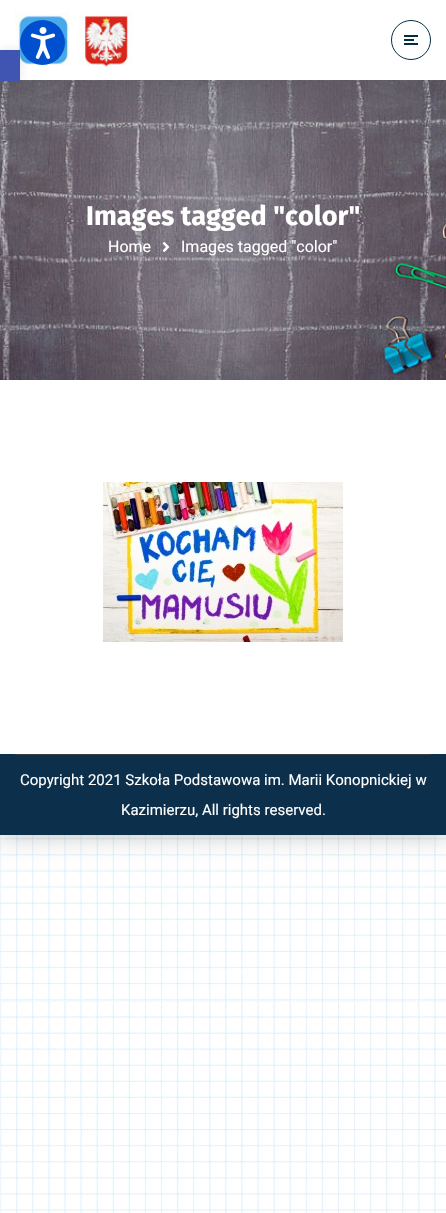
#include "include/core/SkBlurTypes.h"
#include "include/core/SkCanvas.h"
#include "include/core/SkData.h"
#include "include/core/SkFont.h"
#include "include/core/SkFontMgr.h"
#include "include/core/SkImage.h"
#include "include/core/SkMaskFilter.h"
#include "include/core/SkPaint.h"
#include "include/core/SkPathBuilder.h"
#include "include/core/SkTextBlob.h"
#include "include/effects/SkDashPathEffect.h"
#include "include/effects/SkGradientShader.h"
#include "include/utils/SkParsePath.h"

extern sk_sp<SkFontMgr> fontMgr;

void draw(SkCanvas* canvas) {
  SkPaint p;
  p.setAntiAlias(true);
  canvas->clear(SK_ColorWHITE);
  canvas->drawImageRect(SkImages::DeferredFromEncodedData(SkData::MakeFromFileName("images/2.png")), SkRect::MakeLTRB(0, 835, 446, 1213), SkSamplingOptions());
  p.setColor(SkColorSetARGB(54, 0, 0, 0));
  p.setMaskFilter(SkMaskFilter::MakeBlur(kNormal_SkBlurStyle, 11));
  canvas->drawRect(SkRect::MakeLTRB(0, 0, 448, 837), p);
  p.setMaskFilter(nullptr);
  p.setColor(SK_ColorWHITE);
  canvas->drawRect(SkRect::MakeLTRB(0, 0, 446, 80), p);
  canvas->drawImageRect(SkImages::DeferredFromEncodedData(SkData::MakeFromFileName("images/3.png")), SkRect::MakeLTRB(15, 12, 133, 68), SkSamplingOptions());
  canvas->drawImageRect(SkImages::DeferredFromEncodedData(SkData::MakeFromFileName("images/4.png")), SkRect::MakeLTRB(0, 80, 446, 380), SkSamplingOptions());
  p.setColor(SkColorSetARGB(26, 0, 0, 0));
  p.setMaskFilter(SkMaskFilter::MakeBlur(kNormal_SkBlurStyle, 5));
  canvas->drawRect(SkRect::MakeLTRB(0, 50, 20, 81), p);
  p.setMaskFilter(nullptr);
  p.setColor(SkColorSetRGB(0, 79, 206));
  canvas->drawCircle(42.5f, 42.5f, 22.5f, p);
  canvas->drawImageRect(SkImages::DeferredFromEncodedData(SkData::MakeFromFileName("images/1.png")), SkRect::MakeLTRB(30, 27, 56, 59), SkSamplingOptions());
  p.setColor(SkColorSetRGB(64, 84, 178));
  canvas->drawRect(SkRect::MakeLTRB(0, 50, 20, 81), p);
  p.setStyle(SkPaint::kStroke_Style);
  p.setStrokeWidth(1);
  p.setColor(SkColorSetRGB(3, 46, 66));
  canvas->drawCircle(411, 40, 19.5f, p);
  p.setStyle(SkPaint::kFill_Style);
  canvas->drawRect(SkRect::MakeLTRB(404, 35, 418, 37), p);
  canvas->drawRect(SkRect::MakeLTRB(404, 39, 414, 41), p);
  canvas->drawRect(SkRect::MakeLTRB(404, 43, 418, 45), p);
  canvas->drawImageRect(SkImages::DeferredFromEncodedData(SkData::MakeFromFileName("images/5.png")), SkRect::MakeLTRB(162, 242, 170, 252), SkSamplingOptions());
  p.setColor(SK_ColorWHITE);
  canvas->drawRect(SkRect::MakeLTRB(0, 380, 446, 754), p);
  canvas->drawImageRect(SkImages::DeferredFromEncodedData(SkData::MakeFromFileName("images/6.png")), SkRect::MakeLTRB(103, 482, 343, 642), SkSamplingOptions());
  p.setColor(SkColorSetRGB(12, 48, 76));
  canvas->drawRect(SkRect::MakeLTRB(0, 754, 446, 835), p);
  p.setColor(SkColorSetRGB(59, 60, 63));
  canvas->drawRect(SkRect::MakeLTRB(15, 754, 431, 755), p);
  SkFont font1(fontMgr->matchFamilyStyle("Fira Sans", SkFontStyle::Bold()), 27);
  font1.setSubpixel(true);
  p.setColor(SK_ColorWHITE);
  canvas->drawString("Images tagged \"color\"", 86, 225, font1, p);
  SkFont font2(fontMgr->matchFamilyStyle("Roboto", SkFontStyle::Normal()), 16);
  font2.setSubpixel(true);
  canvas->drawString("Home", 108, 252, font2, p);
  canvas->drawString("Images tagged \"color\"", 181, 252, font2, p);
  SkFont font3(fontMgr->matchFamilyStyle("Roboto", SkFontStyle::Normal()), 15);
  font3.setSubpixel(true);
  canvas->drawString("Copyright 2021 Szkoła Podstawowa im. Marii Konopnickiej w", 20, 785, font3, p);
  canvas->drawString("Kazimierzu, All rights reserved.", 121, 815, font3, p);
}
